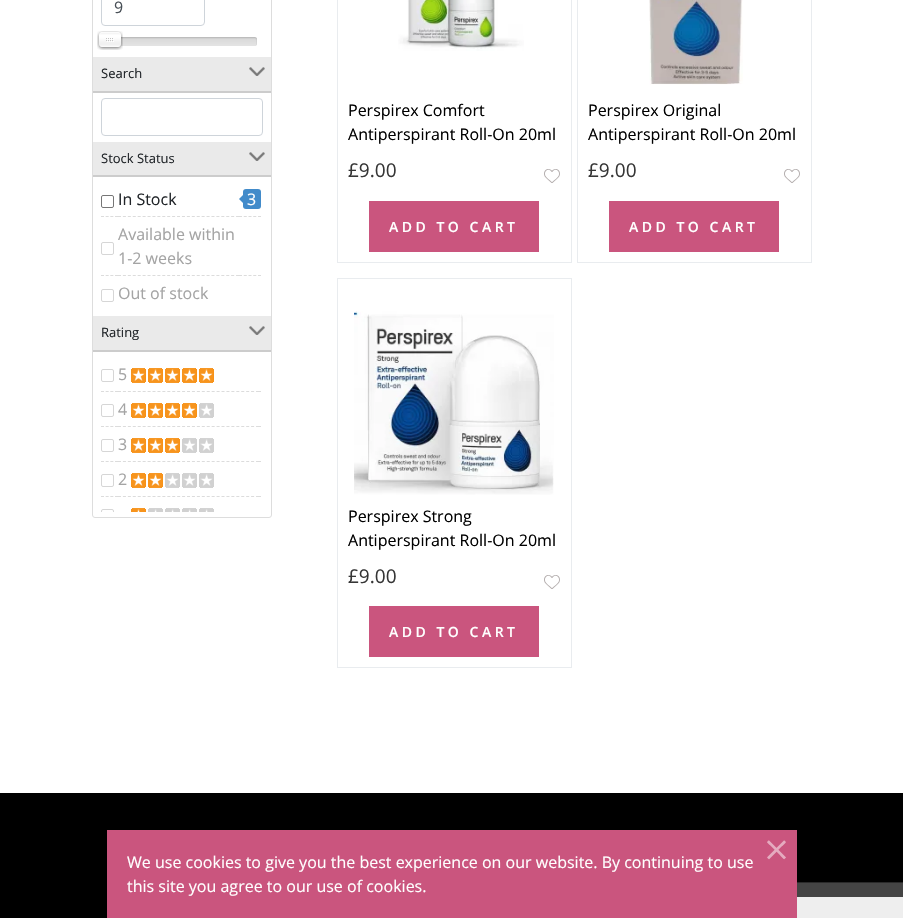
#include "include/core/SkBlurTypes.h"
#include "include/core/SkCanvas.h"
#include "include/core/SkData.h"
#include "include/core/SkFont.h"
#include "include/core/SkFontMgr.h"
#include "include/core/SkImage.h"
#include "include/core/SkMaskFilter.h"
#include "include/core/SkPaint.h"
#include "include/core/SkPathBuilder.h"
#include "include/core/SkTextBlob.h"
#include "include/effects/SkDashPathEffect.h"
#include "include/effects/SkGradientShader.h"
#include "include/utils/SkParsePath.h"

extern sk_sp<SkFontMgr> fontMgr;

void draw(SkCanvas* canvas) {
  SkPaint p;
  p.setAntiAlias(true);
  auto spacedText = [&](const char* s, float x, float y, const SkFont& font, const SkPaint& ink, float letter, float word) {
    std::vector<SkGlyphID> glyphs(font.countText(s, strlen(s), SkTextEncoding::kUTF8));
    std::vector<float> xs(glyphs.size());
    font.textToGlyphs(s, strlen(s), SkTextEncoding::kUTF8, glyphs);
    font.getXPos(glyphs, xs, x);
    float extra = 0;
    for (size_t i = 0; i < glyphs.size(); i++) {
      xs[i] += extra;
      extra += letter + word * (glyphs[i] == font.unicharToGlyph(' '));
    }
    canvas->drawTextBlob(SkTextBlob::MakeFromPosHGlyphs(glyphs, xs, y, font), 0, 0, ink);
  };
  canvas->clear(SK_ColorWHITE);
  p.setStyle(SkPaint::kStroke_Style);
  p.setStrokeWidth(1);
  p.setColor(SkColorSetRGB(221, 221, 221));
  canvas->drawRoundRect(SkRect::MakeLTRB(92.5f, -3.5f, 271.5f, 517.5f), 2.5f, 2.5f, p);
  p.setColor(SkColorSetRGB(206, 212, 218));
  canvas->drawRoundRect(SkRect::MakeLTRB(101.5f, -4.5f, 204.5f, 25.5f), 3.5f, 3.5f, p);
  canvas->drawImageRect(SkImages::DeferredFromEncodedData(SkData::MakeFromFileName("images/1.png")), SkRect::MakeLTRB(255, 37, 257, 46), SkSamplingOptions());
  canvas->drawImageRect(SkImages::DeferredFromEncodedData(SkData::MakeFromFileName("images/2.png")), SkRect::MakeLTRB(120, 37, 255, 46), SkSamplingOptions());
  canvas->drawImageRect(SkImages::DeferredFromEncodedData(SkData::MakeFromFileName("images/3.png")), SkRect::MakeLTRB(97, 31, 123, 50), SkSamplingOptions());
  canvas->drawImageRect(SkImages::DeferredFromEncodedData(SkData::MakeFromFileName("images/4.png")), SkRect::MakeLTRB(97, 31, 123, 50), SkSamplingOptions());
  p.setStyle(SkPaint::kFill_Style);
  p.setColor(SkColorSetRGB(234, 234, 234));
  canvas->drawRect(SkRect::MakeLTRB(93, 57, 271, 91), p);
  canvas->drawImageRect(SkImages::DeferredFromEncodedData(SkData::MakeFromFileName("images/5.png")), SkRect::MakeLTRB(249, 67, 265, 76), SkSamplingOptions());
  p.setColor(SkColorSetRGB(204, 204, 204));
  canvas->drawRect(SkRect::MakeLTRB(93, 91, 271, 93), p);
  p.setStyle(SkPaint::kStroke_Style);
  p.setColor(SkColorSetRGB(206, 212, 218));
  canvas->drawRoundRect(SkRect::MakeLTRB(101.5f, 98.5f, 262.5f, 135.5f), 3.5f, 3.5f, p);
  p.setStyle(SkPaint::kFill_Style);
  p.setColor(SkColorSetRGB(234, 234, 234));
  canvas->drawRect(SkRect::MakeLTRB(93, 142, 271, 175), p);
  canvas->drawImageRect(SkImages::DeferredFromEncodedData(SkData::MakeFromFileName("images/5.png")), SkRect::MakeLTRB(249, 152, 265, 161), SkSamplingOptions());
  p.setColor(SkColorSetRGB(204, 204, 204));
  canvas->drawRect(SkRect::MakeLTRB(93, 175, 271, 177), p);
  p.setStyle(SkPaint::kStroke_Style);
  p.setColor(SkColorSetRGB(118, 118, 118));
  canvas->drawRoundRect(SkRect::MakeLTRB(101.5f, 195.5f, 113.5f, 207.5f), 1.5f, 1.5f, p);
  p.setStyle(SkPaint::kFill_Style);
  p.setColor(SkColorSetRGB(66, 139, 202));
  canvas->drawRoundRect(SkRect::MakeLTRB(243, 189, 261, 209), 3, 3, p);
  canvas->drawPath(SkPathBuilder().moveTo(243, 195).lineTo(243, 203).lineTo(239, 199).close().detach(), p);
  p.setStyle(SkPaint::kStroke_Style);
  p.setColor(SkColorSetRGB(220, 220, 220));
  p.setPathEffect(SkDashPathEffect::Make({{3, 1.67f}}, 0));
  canvas->drawPath(SkPathBuilder().moveTo(101, 216.5f).lineTo(118, 216.5f).detach(), p);
  p.setPathEffect(nullptr);
  p.setColor(SkColorSetRGB(214, 214, 214));
  canvas->drawRoundRect(SkRect::MakeLTRB(101.5f, 242.5f, 113.5f, 254.5f), 1.5f, 1.5f, p);
  p.setColor(SkColorSetRGB(220, 220, 220));
  p.setPathEffect(SkDashPathEffect::Make({{3, 1.75f}}, 0));
  canvas->drawPath(SkPathBuilder().moveTo(239, 216.5f).lineTo(261, 216.5f).detach(), p);
  p.setPathEffect(nullptr);
  p.setPathEffect(SkDashPathEffect::Make({{3, 1.92f}}, 0));
  canvas->drawPath(SkPathBuilder().moveTo(118, 216.5f).lineTo(239, 216.5f).detach(), p);
  p.setPathEffect(nullptr);
  p.setPathEffect(SkDashPathEffect::Make({{3, 1.67f}}, 0));
  canvas->drawPath(SkPathBuilder().moveTo(101, 275.5f).lineTo(118, 275.5f).detach(), p);
  p.setPathEffect(nullptr);
  p.setColor(SkColorSetRGB(214, 214, 214));
  canvas->drawRoundRect(SkRect::MakeLTRB(101.5f, 289.5f, 113.5f, 301.5f), 1.5f, 1.5f, p);
  p.setColor(SkColorSetRGB(220, 220, 220));
  p.setPathEffect(SkDashPathEffect::Make({{3, 1.75f}}, 0));
  canvas->drawPath(SkPathBuilder().moveTo(239, 275.5f).lineTo(261, 275.5f).detach(), p);
  p.setPathEffect(nullptr);
  p.setPathEffect(SkDashPathEffect::Make({{3, 1.92f}}, 0));
  canvas->drawPath(SkPathBuilder().moveTo(118, 275.5f).lineTo(239, 275.5f).detach(), p);
  p.setPathEffect(nullptr);
  p.setStyle(SkPaint::kFill_Style);
  p.setColor(SkColorSetRGB(234, 234, 234));
  canvas->drawRect(SkRect::MakeLTRB(93, 316, 271, 350), p);
  canvas->drawImageRect(SkImages::DeferredFromEncodedData(SkData::MakeFromFileName("images/5.png")), SkRect::MakeLTRB(249, 326, 265, 335), SkSamplingOptions());
  p.setColor(SkColorSetRGB(204, 204, 204));
  canvas->drawRect(SkRect::MakeLTRB(93, 350, 271, 352), p);
  p.setStyle(SkPaint::kStroke_Style);
  p.setColor(SkColorSetRGB(214, 214, 214));
  canvas->drawRoundRect(SkRect::MakeLTRB(101.5f, 369.5f, 113.5f, 381.5f), 1.5f, 1.5f, p);
  canvas->drawImageRect(SkImages::DeferredFromEncodedData(SkData::MakeFromFileName("images/6.png")), SkRect::MakeLTRB(131, 368, 214, 383), SkSamplingOptions());
  p.setColor(SkColorSetRGB(220, 220, 220));
  p.setPathEffect(SkDashPathEffect::Make({{3, 1.67f}}, 0));
  canvas->drawPath(SkPathBuilder().moveTo(101, 391.5f).lineTo(118, 391.5f).detach(), p);
  p.setPathEffect(nullptr);
  p.setColor(SkColorSetRGB(214, 214, 214));
  canvas->drawRoundRect(SkRect::MakeLTRB(101.5f, 404.5f, 113.5f, 416.5f), 1.5f, 1.5f, p);
  p.setStyle(SkPaint::kFill_Style);
  p.setColor(SkColorSetRGB(220, 220, 220));
  canvas->drawRect(SkRect::MakeLTRB(259, 391, 261, 392), p);
  p.setStyle(SkPaint::kStroke_Style);
  p.setPathEffect(SkDashPathEffect::Make({{3, 1.93f}}, 0));
  canvas->drawPath(SkPathBuilder().moveTo(118, 391.5f).lineTo(259, 391.5f).detach(), p);
  p.setPathEffect(nullptr);
  canvas->drawImageRect(SkImages::DeferredFromEncodedData(SkData::MakeFromFileName("images/7.png")), SkRect::MakeLTRB(131, 403, 214, 418), SkSamplingOptions());
  p.setPathEffect(SkDashPathEffect::Make({{3, 1.67f}}, 0));
  canvas->drawPath(SkPathBuilder().moveTo(101, 426.5f).lineTo(118, 426.5f).detach(), p);
  p.setPathEffect(nullptr);
  p.setColor(SkColorSetRGB(214, 214, 214));
  canvas->drawRoundRect(SkRect::MakeLTRB(101.5f, 439.5f, 113.5f, 451.5f), 1.5f, 1.5f, p);
  p.setStyle(SkPaint::kFill_Style);
  p.setColor(SkColorSetRGB(220, 220, 220));
  canvas->drawRect(SkRect::MakeLTRB(259, 426, 261, 427), p);
  p.setStyle(SkPaint::kStroke_Style);
  p.setPathEffect(SkDashPathEffect::Make({{3, 1.93f}}, 0));
  canvas->drawPath(SkPathBuilder().moveTo(118, 426.5f).lineTo(259, 426.5f).detach(), p);
  p.setPathEffect(nullptr);
  canvas->drawImageRect(SkImages::DeferredFromEncodedData(SkData::MakeFromFileName("images/8.png")), SkRect::MakeLTRB(131, 438, 214, 453), SkSamplingOptions());
  p.setPathEffect(SkDashPathEffect::Make({{3, 1.67f}}, 0));
  canvas->drawPath(SkPathBuilder().moveTo(101, 461.5f).lineTo(118, 461.5f).detach(), p);
  p.setPathEffect(nullptr);
  p.setColor(SkColorSetRGB(214, 214, 214));
  canvas->drawRoundRect(SkRect::MakeLTRB(101.5f, 474.5f, 113.5f, 486.5f), 1.5f, 1.5f, p);
  p.setStyle(SkPaint::kFill_Style);
  p.setColor(SkColorSetRGB(220, 220, 220));
  canvas->drawRect(SkRect::MakeLTRB(259, 461, 261, 462), p);
  p.setStyle(SkPaint::kStroke_Style);
  p.setPathEffect(SkDashPathEffect::Make({{3, 1.93f}}, 0));
  canvas->drawPath(SkPathBuilder().moveTo(118, 461.5f).lineTo(259, 461.5f).detach(), p);
  p.setPathEffect(nullptr);
  canvas->drawImageRect(SkImages::DeferredFromEncodedData(SkData::MakeFromFileName("images/9.png")), SkRect::MakeLTRB(131, 473, 214, 488), SkSamplingOptions());
  p.setPathEffect(SkDashPathEffect::Make({{3, 1.67f}}, 0));
  canvas->drawPath(SkPathBuilder().moveTo(101, 496.5f).lineTo(118, 496.5f).detach(), p);
  p.setPathEffect(nullptr);
  canvas->save();
  canvas->clipRect(SkRect::MakeLTRB(93, 357, 271, 512));
  p.setColor(SkColorSetRGB(214, 214, 214));
  canvas->drawRoundRect(SkRect::MakeLTRB(101.5f, 509.5f, 113.5f, 521.5f), 1.5f, 1.5f, p);
  canvas->restore();
  p.setColor(SkColorSetRGB(220, 220, 220));
  p.setPathEffect(SkDashPathEffect::Make({{3, 1.93f}}, 0));
  canvas->drawPath(SkPathBuilder().moveTo(118, 496.5f).lineTo(259, 496.5f).detach(), p);
  p.setPathEffect(nullptr);
  canvas->drawImageRect(SkImages::DeferredFromEncodedData(SkData::MakeFromFileName("images/10.png")), SkRect::MakeLTRB(131, 508, 214, 512), SkSamplingOptions());
  p.setStyle(SkPaint::kFill_Style);
  canvas->drawRect(SkRect::MakeLTRB(259, 496, 261, 497), p);
  p.setStyle(SkPaint::kStroke_Style);
  p.setColor(SkColorSetRGB(233, 236, 239));
  canvas->drawRect(SkRect::MakeLTRB(337.5f, -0.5f, 571.5f, 262.5f), p);
  canvas->drawImageRect(SkImages::DeferredFromEncodedData(SkData::MakeFromFileName("images/11.png")), SkRect::MakeLTRB(398, 0, 524, 51), SkSamplingOptions());
  canvas->drawImageRect(SkImages::DeferredFromEncodedData(SkData::MakeFromFileName("images/12.png")), SkRect::MakeLTRB(544, 169, 560, 183), SkSamplingOptions());
  p.setStyle(SkPaint::kFill_Style);
  p.setColor(SkColorSetRGB(202, 85, 126));
  canvas->drawRect(SkRect::MakeLTRB(369, 201, 539, 252), p);
  p.setStyle(SkPaint::kStroke_Style);
  p.setColor(SkColorSetRGB(233, 236, 239));
  canvas->drawRect(SkRect::MakeLTRB(577.5f, -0.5f, 811.5f, 262.5f), p);
  canvas->drawImageRect(SkImages::DeferredFromEncodedData(SkData::MakeFromFileName("images/13.png")), SkRect::MakeLTRB(649, 0, 743, 85), SkSamplingOptions());
  canvas->drawImageRect(SkImages::DeferredFromEncodedData(SkData::MakeFromFileName("images/12.png")), SkRect::MakeLTRB(784, 169, 800, 183), SkSamplingOptions());
  p.setStyle(SkPaint::kFill_Style);
  p.setColor(SkColorSetRGB(202, 85, 126));
  canvas->drawRect(SkRect::MakeLTRB(609, 201, 779, 252), p);
  p.setStyle(SkPaint::kStroke_Style);
  p.setColor(SkColorSetRGB(233, 236, 239));
  canvas->drawRect(SkRect::MakeLTRB(337.5f, 278.5f, 571.5f, 667.5f), p);
  canvas->drawImageRect(SkImages::DeferredFromEncodedData(SkData::MakeFromFileName("images/14.png")), SkRect::MakeLTRB(354, 311, 554, 495), SkSamplingOptions());
  canvas->drawImageRect(SkImages::DeferredFromEncodedData(SkData::MakeFromFileName("images/12.png")), SkRect::MakeLTRB(544, 575, 560, 589), SkSamplingOptions());
  p.setStyle(SkPaint::kFill_Style);
  p.setColor(SkColorSetRGB(202, 85, 126));
  canvas->drawRect(SkRect::MakeLTRB(369, 606, 539, 657), p);
  p.setColor(SK_ColorBLACK);
  canvas->drawRect(SkRect::MakeLTRB(0, 793, 903, 918), p);
  p.setColor(SkColorSetRGB(68, 68, 68));
  canvas->drawRect(SkRect::MakeLTRB(797, 882, 903, 897), p);
  p.setColor(SkColorSetARGB(102, 0, 0, 0));
  canvas->drawPath(SkPathBuilder().moveTo(678, 883).lineTo(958, 883).cubicTo(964, 883, 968, 887, 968, 893).cubicTo(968, 888, 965, 883, 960, 882).lineTo(678, 882).cubicTo(672, 882, 668, 887, 668, 893).cubicTo(668, 887, 672, 883, 678, 883).close().detach(), p);
  p.setColor(SkColorSetRGB(202, 85, 126));
  canvas->drawRect(SkRect::MakeLTRB(107, 830, 797, 918), p);
  canvas->drawImageRect(SkImages::DeferredFromEncodedData(SkData::MakeFromFileName("images/15.png")), SkRect::MakeLTRB(767, 840, 786, 860), SkSamplingOptions());
  p.setColor(SkColorSetRGB(238, 238, 238));
  canvas->drawRect(SkRect::MakeLTRB(797, 897, 903, 918), p);
  SkFont font1(fontMgr->matchFamilyStyle("Open Sans", SkFontStyle::Normal()), 16);
  font1.setSubpixel(true);
  p.setColor(SkColorSetRGB(73, 80, 87));
  canvas->drawString("9", 114, 13, font1, p);
  SkFont font2(fontMgr->matchFamilyStyle("Open Sans", SkFontStyle::Normal()), 13);
  font2.setSubpixel(true);
  p.setColor(SkColorSetRGB(33, 37, 41));
  canvas->drawString("Search", 101, 78, font2, p);
  canvas->drawString("Stock Status", 101, 163, font2, p);
  canvas->drawString("In Stock", 118, 205, font1, p);
  p.setColor(SK_ColorWHITE);
  canvas->drawString("3", 247, 205, font1, p);
  p.setColor(SkColorSetRGB(164, 164, 164));
  canvas->drawString("Available within", 118, 240, font1, p);
  canvas->drawString("1-2 weeks", 118, 264, font1, p);
  canvas->drawString("Out of stock", 118, 299, font1, p);
  p.setColor(SkColorSetRGB(33, 37, 41));
  canvas->drawString("Rating", 101, 337, font2, p);
  p.setColor(SkColorSetRGB(164, 164, 164));
  canvas->drawString("5", 118, 380, font1, p);
  canvas->drawString("4", 118, 415, font1, p);
  canvas->drawString("3", 118, 450, font1, p);
  canvas->drawString("2", 118, 485, font1, p);
  p.setColor(SK_ColorBLACK);
  canvas->drawString("Perspirex Comfort", 348, 116, font1, p);
  canvas->drawString("Antiperspirant Roll-On 20ml", 348, 140, font1, p);
  SkFont font3(fontMgr->matchFamilyStyle("Open Sans", SkFontStyle::Normal()), 19);
  font3.setSubpixel(true);
  p.setColor(SkColorSetRGB(54, 54, 54));
  canvas->drawString("£9.00", 348, 177, font3, p);
  SkFont font4(fontMgr->matchFamilyStyle("Open Sans", SkFontStyle(600, SkFontStyle::kNormal_Width, SkFontStyle::kUpright_Slant)), 14);
  font4.setSubpixel(true);
  p.setColor(SK_ColorWHITE);
  spacedText("ADD TO CART", 389, 232, font4, p, 3.5f, 0);
  p.setColor(SK_ColorBLACK);
  canvas->drawString("Perspirex Original", 588, 116, font1, p);
  canvas->drawString("Antiperspirant Roll-On 20ml", 588, 140, font1, p);
  p.setColor(SkColorSetRGB(54, 54, 54));
  canvas->drawString("£9.00", 588, 177, font3, p);
  p.setColor(SK_ColorWHITE);
  spacedText("ADD TO CART", 629, 232, font4, p, 3.5f, 0);
  p.setColor(SK_ColorBLACK);
  canvas->drawString("Perspirex Strong", 348, 522, font1, p);
  canvas->drawString("Antiperspirant Roll-On 20ml", 348, 546, font1, p);
  p.setColor(SkColorSetRGB(54, 54, 54));
  canvas->drawString("£9.00", 348, 583, font3, p);
  p.setColor(SK_ColorWHITE);
  spacedText("ADD TO CART", 389, 637, font4, p, 3.5f, 0);
  canvas->drawString("We use cookies to give you the best experience on our website. By continuing to use", 127, 868, font1, p);
  canvas->drawString("this site you agree to our use of cookies.", 127, 892, font1, p);
}
